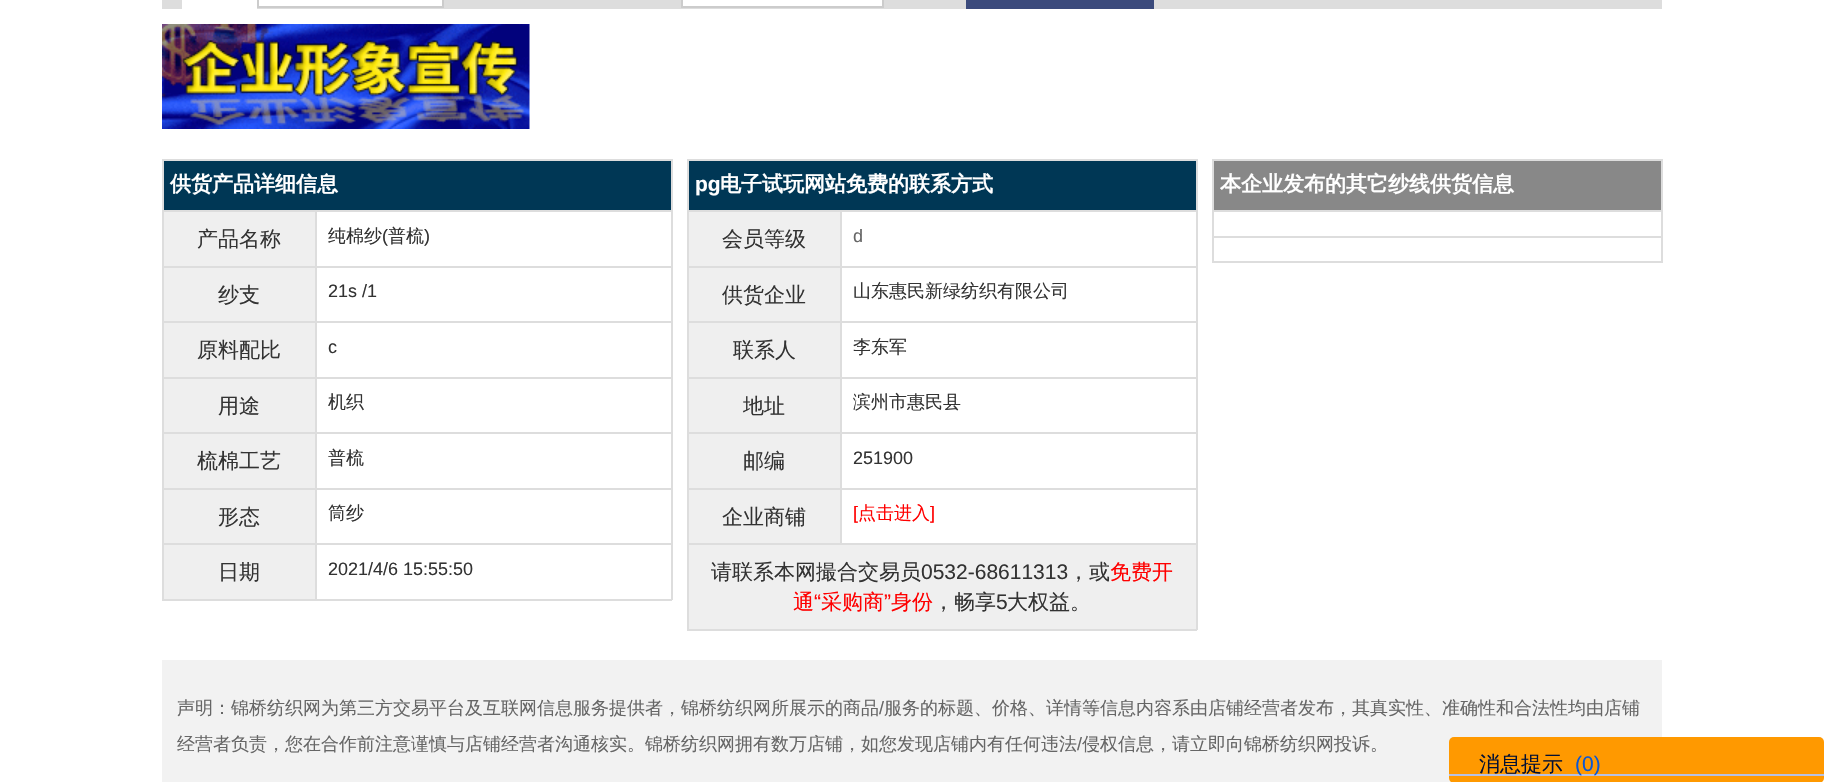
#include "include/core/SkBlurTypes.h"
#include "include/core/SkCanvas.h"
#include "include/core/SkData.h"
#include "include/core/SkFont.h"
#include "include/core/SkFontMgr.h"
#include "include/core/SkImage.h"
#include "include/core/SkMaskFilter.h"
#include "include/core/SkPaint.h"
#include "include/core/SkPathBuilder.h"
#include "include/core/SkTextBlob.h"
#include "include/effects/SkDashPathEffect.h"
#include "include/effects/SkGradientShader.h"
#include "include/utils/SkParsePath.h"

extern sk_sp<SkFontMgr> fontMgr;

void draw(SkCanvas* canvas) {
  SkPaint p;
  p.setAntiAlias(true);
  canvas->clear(SK_ColorWHITE);
  p.setColor(SkColorSetRGB(221, 221, 221));
  canvas->drawRect(SkRect::MakeLTRB(162, 0, 1662, 9), p);
  p.setColor(SK_ColorWHITE);
  canvas->drawRect(SkRect::MakeLTRB(182, 0, 257, 9), p);
  canvas->drawRect(SkRect::MakeLTRB(258, -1, 443, 7), p);
  p.setStyle(SkPaint::kStroke_Style);
  p.setStrokeWidth(2);
  p.setColor(SkColorSetRGB(204, 204, 204));
  canvas->drawRect(SkRect::MakeLTRB(258, -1, 443, 7), p);
  p.setStyle(SkPaint::kFill_Style);
  p.setColor(SK_ColorWHITE);
  canvas->drawRect(SkRect::MakeLTRB(682, -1, 883, 7), p);
  p.setStyle(SkPaint::kStroke_Style);
  p.setColor(SkColorSetRGB(204, 204, 204));
  canvas->drawRect(SkRect::MakeLTRB(682, -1, 883, 7), p);
  p.setStyle(SkPaint::kFill_Style);
  p.setColor(SkColorSetRGB(59, 74, 124));
  canvas->drawRect(SkRect::MakeLTRB(966, 0, 1154, 9), p);
  canvas->drawImageRect(SkImages::DeferredFromEncodedData(SkData::MakeFromFileName("images/1.png")), SkRect::MakeLTRB(162, 24, 530, 129), SkSamplingOptions());
  p.setColor(SkColorSetRGB(221, 221, 221));
  canvas->drawRect(SkRect::MakeLTRB(162, 159, 672, 161), p);
  canvas->drawRect(SkRect::MakeLTRB(671, 159, 673, 600), p);
  canvas->drawRect(SkRect::MakeLTRB(162, 599, 672, 601), p);
  canvas->drawRect(SkRect::MakeLTRB(162, 159, 164, 600), p);
  p.setColor(SkColorSetRGB(0, 55, 85));
  canvas->drawRect(SkRect::MakeLTRB(164, 161, 671, 210), p);
  p.setColor(SkColorSetRGB(239, 239, 239));
  canvas->drawRect(SkRect::MakeLTRB(164, 212, 315, 266), p);
  p.setColor(SkColorSetRGB(221, 221, 221));
  canvas->drawRect(SkRect::MakeLTRB(315, 210, 672, 212), p);
  canvas->drawRect(SkRect::MakeLTRB(315, 266, 672, 268), p);
  canvas->drawRect(SkRect::MakeLTRB(315, 321, 672, 323), p);
  canvas->drawRect(SkRect::MakeLTRB(315, 377, 672, 379), p);
  canvas->drawRect(SkRect::MakeLTRB(315, 432, 672, 434), p);
  canvas->drawRect(SkRect::MakeLTRB(315, 488, 672, 490), p);
  canvas->drawRect(SkRect::MakeLTRB(315, 543, 672, 545), p);
  canvas->drawRect(SkRect::MakeLTRB(315, 543, 317, 600), p);
  canvas->drawRect(SkRect::MakeLTRB(162, 543, 317, 545), p);
  canvas->drawRect(SkRect::MakeLTRB(315, 488, 317, 545), p);
  canvas->drawRect(SkRect::MakeLTRB(162, 488, 317, 490), p);
  canvas->drawRect(SkRect::MakeLTRB(315, 432, 317, 489), p);
  canvas->drawRect(SkRect::MakeLTRB(162, 432, 317, 434), p);
  canvas->drawRect(SkRect::MakeLTRB(315, 377, 317, 434), p);
  canvas->drawRect(SkRect::MakeLTRB(162, 377, 317, 379), p);
  canvas->drawRect(SkRect::MakeLTRB(315, 321, 317, 378), p);
  canvas->drawRect(SkRect::MakeLTRB(162, 321, 317, 323), p);
  canvas->drawRect(SkRect::MakeLTRB(315, 266, 317, 323), p);
  canvas->drawRect(SkRect::MakeLTRB(162, 266, 317, 268), p);
  canvas->drawRect(SkRect::MakeLTRB(315, 210, 317, 267), p);
  canvas->drawRect(SkRect::MakeLTRB(162, 210, 317, 212), p);
  p.setColor(SkColorSetRGB(239, 239, 239));
  canvas->drawRect(SkRect::MakeLTRB(164, 268, 315, 321), p);
  canvas->drawRect(SkRect::MakeLTRB(164, 323, 315, 377), p);
  canvas->drawRect(SkRect::MakeLTRB(164, 379, 315, 432), p);
  canvas->drawRect(SkRect::MakeLTRB(164, 434, 315, 488), p);
  canvas->drawRect(SkRect::MakeLTRB(164, 490, 315, 543), p);
  canvas->drawRect(SkRect::MakeLTRB(164, 545, 315, 599), p);
  p.setColor(SkColorSetRGB(221, 221, 221));
  canvas->drawRect(SkRect::MakeLTRB(687, 159, 1197, 161), p);
  canvas->drawRect(SkRect::MakeLTRB(1196, 159, 1198, 630), p);
  canvas->drawRect(SkRect::MakeLTRB(687, 629, 1197, 631), p);
  canvas->drawRect(SkRect::MakeLTRB(687, 159, 689, 630), p);
  p.setColor(SkColorSetRGB(0, 55, 85));
  canvas->drawRect(SkRect::MakeLTRB(689, 161, 1196, 210), p);
  p.setColor(SkColorSetRGB(239, 239, 239));
  canvas->drawRect(SkRect::MakeLTRB(689, 212, 840, 266), p);
  p.setColor(SkColorSetRGB(221, 221, 221));
  canvas->drawRect(SkRect::MakeLTRB(840, 210, 1197, 212), p);
  canvas->drawRect(SkRect::MakeLTRB(840, 266, 1197, 268), p);
  canvas->drawRect(SkRect::MakeLTRB(840, 321, 1197, 323), p);
  canvas->drawRect(SkRect::MakeLTRB(840, 377, 1197, 379), p);
  canvas->drawRect(SkRect::MakeLTRB(840, 432, 1197, 434), p);
  canvas->drawRect(SkRect::MakeLTRB(840, 488, 1197, 490), p);
  canvas->drawRect(SkRect::MakeLTRB(687, 543, 1197, 545), p);
  canvas->drawRect(SkRect::MakeLTRB(840, 488, 842, 545), p);
  canvas->drawRect(SkRect::MakeLTRB(687, 488, 842, 490), p);
  canvas->drawRect(SkRect::MakeLTRB(840, 432, 842, 489), p);
  canvas->drawRect(SkRect::MakeLTRB(687, 432, 842, 434), p);
  canvas->drawRect(SkRect::MakeLTRB(840, 377, 842, 434), p);
  canvas->drawRect(SkRect::MakeLTRB(687, 377, 842, 379), p);
  canvas->drawRect(SkRect::MakeLTRB(840, 321, 842, 378), p);
  canvas->drawRect(SkRect::MakeLTRB(687, 321, 842, 323), p);
  canvas->drawRect(SkRect::MakeLTRB(840, 266, 842, 323), p);
  canvas->drawRect(SkRect::MakeLTRB(687, 266, 842, 268), p);
  canvas->drawRect(SkRect::MakeLTRB(840, 210, 842, 267), p);
  canvas->drawRect(SkRect::MakeLTRB(687, 210, 842, 212), p);
  p.setColor(SkColorSetRGB(239, 239, 239));
  canvas->drawRect(SkRect::MakeLTRB(689, 268, 840, 321), p);
  canvas->drawRect(SkRect::MakeLTRB(689, 323, 840, 377), p);
  canvas->drawRect(SkRect::MakeLTRB(689, 379, 840, 432), p);
  canvas->drawRect(SkRect::MakeLTRB(689, 434, 840, 488), p);
  canvas->drawRect(SkRect::MakeLTRB(689, 490, 840, 543), p);
  canvas->drawRect(SkRect::MakeLTRB(689, 545, 1196, 629), p);
  p.setColor(SkColorSetRGB(221, 221, 221));
  canvas->drawRect(SkRect::MakeLTRB(1212, 159, 1662, 161), p);
  canvas->drawRect(SkRect::MakeLTRB(1661, 159, 1663, 263), p);
  canvas->drawRect(SkRect::MakeLTRB(1212, 261, 1662, 263), p);
  canvas->drawRect(SkRect::MakeLTRB(1212, 159, 1214, 263), p);
  p.setColor(SkColorSetRGB(136, 136, 136));
  canvas->drawRect(SkRect::MakeLTRB(1214, 161, 1661, 210), p);
  p.setColor(SkColorSetRGB(221, 221, 221));
  canvas->drawRect(SkRect::MakeLTRB(1212, 210, 1662, 212), p);
  canvas->drawRect(SkRect::MakeLTRB(1212, 236, 1662, 238), p);
  p.setColor(SkColorSetRGB(242, 242, 242));
  canvas->drawRect(SkRect::MakeLTRB(162, 660, 1662, 782), p);
  p.setColor(SkColorSetRGB(255, 153, 0));
  canvas->drawRoundRect(SkRect::MakeLTRB(1449, 737, 1824, 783), 5, 5, p);
  p.setColor(SkColorSetRGB(183, 192, 225));
  canvas->drawRect(SkRect::MakeLTRB(1449, 774, 1824, 776), p);
  SkFont font1(fontMgr->matchFamilyStyle("WenQuanYi Zen Hei", SkFontStyle::Bold()), 21);
  font1.setSubpixel(true);
  p.setColor(SK_ColorWHITE);
  canvas->drawString("供货产品详细信息", 170, 191, font1, p);
  SkFont font2(fontMgr->matchFamilyStyle("WenQuanYi Zen Hei", SkFontStyle(500, SkFontStyle::kNormal_Width, SkFontStyle::kUpright_Slant)), 21);
  font2.setSubpixel(true);
  p.setColor(SkColorSetRGB(51, 51, 51));
  canvas->drawString("产品名称", 197, 246, font2, p);
  SkFont font3(fontMgr->matchFamilyStyle("WenQuanYi Zen Hei", SkFontStyle(500, SkFontStyle::kNormal_Width, SkFontStyle::kUpright_Slant)), 18);
  font3.setSubpixel(true);
  canvas->drawString("纯棉纱", 328, 242, font3, p);
  SkFont font4(fontMgr->matchFamilyStyle("Liberation Sans", SkFontStyle::Normal()), 18);
  font4.setSubpixel(true);
  canvas->drawString("(", 382, 242, font4, p);
  canvas->drawString("普梳", 388, 242, font3, p);
  canvas->drawString(")", 424, 242, font4, p);
  canvas->drawString("纱支", 218, 302, font2, p);
  canvas->drawString("21s /1", 328, 297, font4, p);
  canvas->drawString("原料配比", 197, 357, font2, p);
  canvas->drawString("c", 328, 353, font4, p);
  canvas->drawString("用途", 218, 413, font2, p);
  canvas->drawString("机织", 328, 408, font3, p);
  canvas->drawString("梳棉工艺", 197, 468, font2, p);
  canvas->drawString("普梳", 328, 464, font3, p);
  canvas->drawString("形态", 218, 524, font2, p);
  canvas->drawString("筒纱", 328, 519, font3, p);
  canvas->drawString("日期", 218, 579, font2, p);
  canvas->drawString("2021/4/6 15:55:50", 328, 575, font4, p);
  SkFont font5(fontMgr->matchFamilyStyle("Liberation Sans", SkFontStyle::Bold()), 21);
  font5.setSubpixel(true);
  p.setColor(SK_ColorWHITE);
  canvas->drawString("pg", 695, 191, font5, p);
  canvas->drawString("电子试玩网站免费的联系方式", 720, 191, font1, p);
  p.setColor(SkColorSetRGB(51, 51, 51));
  canvas->drawString("会员等级", 722, 246, font2, p);
  p.setColor(SkColorSetRGB(102, 102, 102));
  canvas->drawString("d", 853, 242, font4, p);
  p.setColor(SkColorSetRGB(51, 51, 51));
  canvas->drawString("供货企业", 722, 302, font2, p);
  canvas->drawString("山东惠民新绿纺织有限公司", 853, 297, font3, p);
  canvas->drawString("联系人", 733, 357, font2, p);
  canvas->drawString("李东军", 853, 353, font3, p);
  canvas->drawString("地址", 743, 413, font2, p);
  canvas->drawString("滨州市惠民县", 853, 408, font3, p);
  canvas->drawString("邮编", 743, 468, font2, p);
  canvas->drawString("251900", 853, 464, font4, p);
  canvas->drawString("企业商铺", 722, 524, font2, p);
  p.setColor(SkColorSetRGB(255, 0, 0));
  canvas->drawString("[", 853, 519, font4, p);
  canvas->drawString("点击进入", 858, 519, font3, p);
  canvas->drawString("]", 930, 519, font4, p);
  p.setColor(SkColorSetRGB(51, 51, 51));
  canvas->drawString("请联系本网撮合交易员", 711, 579, font2, p);
  SkFont font6(fontMgr->matchFamilyStyle("Liberation Sans", SkFontStyle::Normal()), 21);
  font6.setSubpixel(true);
  canvas->drawString("0532-68611313", 921, 579, font6, p);
  canvas->drawString("，或", 1068, 579, font2, p);
  p.setColor(SkColorSetRGB(255, 0, 0));
  canvas->drawString("免费开", 1110, 579, font2, p);
  canvas->drawString("通", 793, 609, font2, p);
  canvas->drawString("“", 814, 609, font6, p);
  canvas->drawString("采购商", 821, 609, font2, p);
  canvas->drawString("”", 884, 609, font6, p);
  canvas->drawString("身份", 891, 609, font2, p);
  p.setColor(SkColorSetRGB(51, 51, 51));
  canvas->drawString("，畅享", 933, 609, font2, p);
  canvas->drawString("5", 996, 609, font6, p);
  canvas->drawString("大权益。", 1007, 609, font2, p);
  p.setColor(SK_ColorWHITE);
  canvas->drawString("本企业发布的其它纱线供货信息", 1220, 191, font1, p);
  p.setColor(SkColorSetRGB(102, 102, 102));
  canvas->drawString("声明：锦桥纺织网为第三方交易平台及互联网信息服务提供者，锦桥纺织网所展示的商品", 177, 714, font3, p);
  canvas->drawString("/", 879, 714, font4, p);
  canvas->drawString("服务的标题、价格、详情等信息内容系由店铺经营者发布，其真实性、准确性和合法性均由店铺", 884, 714, font3, p);
  canvas->drawString("经营者负责，您在合作前注意谨慎与店铺经营者沟通核实。锦桥纺织网拥有数万店铺，如您发现店铺内有任何违法", 177, 750, font3, p);
  canvas->drawString("/", 1077, 750, font4, p);
  canvas->drawString("侵权信息，请立即向锦桥纺织网投诉。", 1082, 750, font3, p);
  p.setColor(SkColorSetRGB(3, 16, 52));
  canvas->drawString("消息提示", 1479, 771, font2, p);
  p.setColor(SkColorSetRGB(11, 87, 212));
  canvas->drawString("(0)", 1575, 771, font6, p);
}
